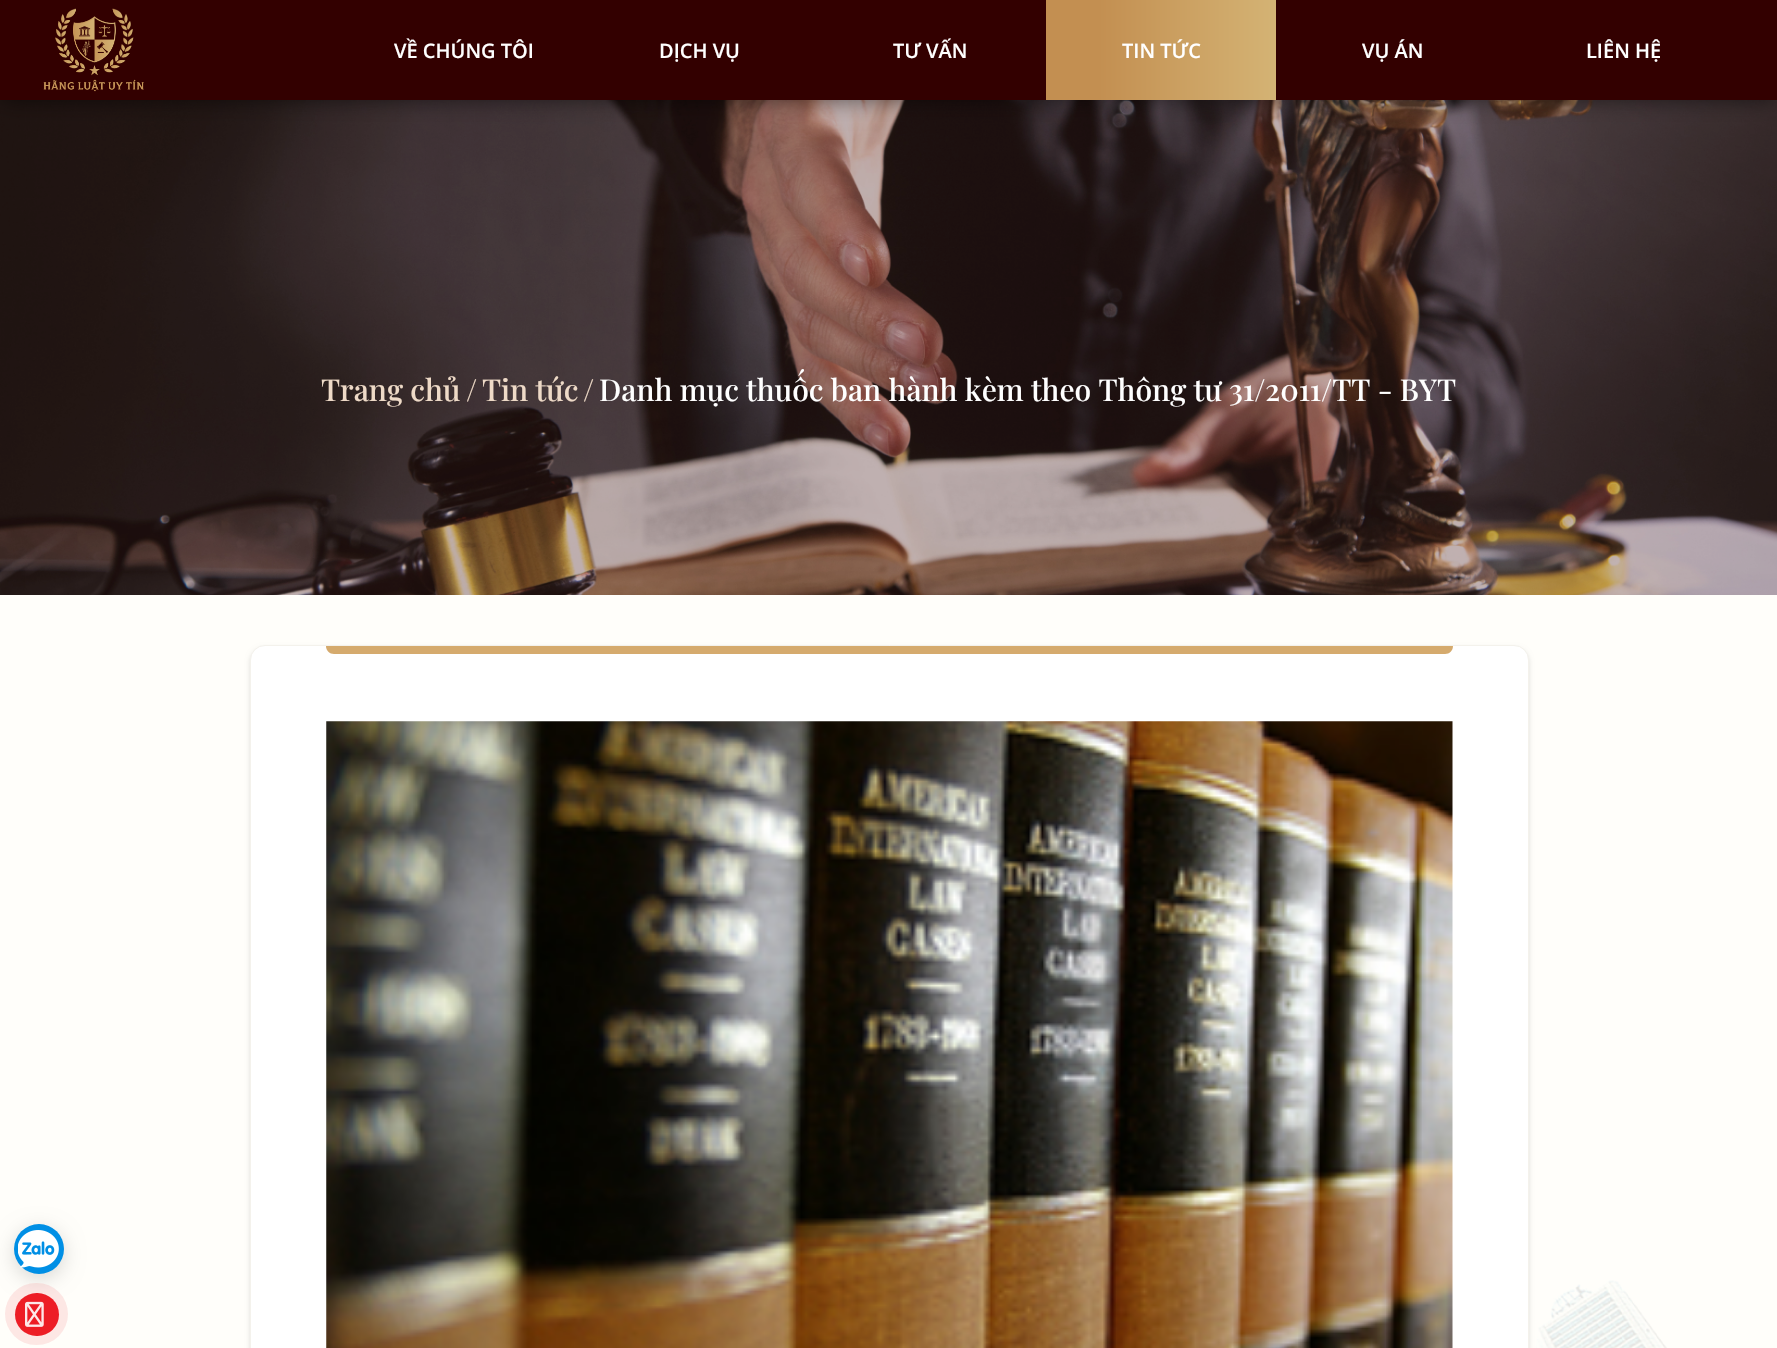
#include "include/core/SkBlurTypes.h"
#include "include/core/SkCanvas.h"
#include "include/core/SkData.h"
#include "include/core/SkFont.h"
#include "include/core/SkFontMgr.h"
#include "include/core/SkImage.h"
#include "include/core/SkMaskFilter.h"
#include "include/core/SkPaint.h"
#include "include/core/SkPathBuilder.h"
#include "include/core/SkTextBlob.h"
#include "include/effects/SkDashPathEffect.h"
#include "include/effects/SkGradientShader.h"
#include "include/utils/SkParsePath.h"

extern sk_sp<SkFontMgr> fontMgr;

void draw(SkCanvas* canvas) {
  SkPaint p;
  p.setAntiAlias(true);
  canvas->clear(SkColorSetRGB(255, 254, 250));
  canvas->drawImageRect(SkImages::DeferredFromEncodedData(SkData::MakeFromFileName("images/2.png")), SkRect::MakeLTRB(0, 100, 1777, 595), SkSamplingOptions());
  p.setColor(SkColorSetARGB(128, 0, 0, 0));
  p.setMaskFilter(SkMaskFilter::MakeBlur(kNormal_SkBlurStyle, 10));
  canvas->drawRect(SkRect::MakeLTRB(3, 6, 1775, 101), p);
  p.setMaskFilter(nullptr);
  p.setColor(SkColorSetRGB(51, 0, 0));
  canvas->drawRect(SkRect::MakeLTRB(0, 0, 1777, 100), p);
  canvas->drawImageRect(SkImages::DeferredFromEncodedData(SkData::MakeFromFileName("images/1.png")), SkRect::MakeLTRB(43, 8, 144, 92), SkSamplingOptions());
  {
    const SkColor colors[] = {SkColorSetRGB(195, 143, 81), SkColorSetRGB(212, 179, 116)};
    const float stops[] = {0.23f, 1};
    const SkPoint ends[] = {{1046, 50}, {1276, 50}};
    p.setShader(SkGradientShader::MakeLinear(ends, colors, stops, 2, SkTileMode::kClamp));
    p.setAlpha(255);
  }
  canvas->drawRect(SkRect::MakeLTRB(1046, 0, 1276, 100), p);
  canvas->drawImageRect(SkImages::DeferredFromEncodedData(SkData::MakeFromFileName("images/4.png")), SkRect::MakeLTRB(1535, 1280, 1667, 1348), SkSamplingOptions());
  p.setShader(nullptr);
  p.setColor(SkColorSetARGB(31, 0, 0, 0));
  p.setMaskFilter(SkMaskFilter::MakeBlur(kNormal_SkBlurStyle, 2.5f));
  canvas->drawRoundRect(SkRect::MakeLTRB(250, 648, 1529, 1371), 15, 15, p);
  p.setMaskFilter(nullptr);
  p.setColor(SK_ColorWHITE);
  canvas->drawRoundRect(SkRect::MakeLTRB(250.5f, 645.5f, 1528.5f, 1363.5f), 14.5f, 14.5f, p);
  p.setStyle(SkPaint::kStroke_Style);
  p.setStrokeWidth(1);
  p.setColor(SkColorSetRGB(244, 242, 236));
  canvas->drawRoundRect(SkRect::MakeLTRB(250.5f, 645.5f, 1528.5f, 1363.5f), 14.5f, 14.5f, p);
  p.setStyle(SkPaint::kFill_Style);
  p.setColor(SkColorSetRGB(213, 170, 109));
  canvas->drawPath(SkPathBuilder().moveTo(326, 646).lineTo(1453, 646).cubicTo(1453, 650.5f, 1449.5f, 654, 1445, 654).lineTo(334, 654).cubicTo(329.5f, 654, 326, 650.5f, 326, 646).close().detach(), p);
  canvas->drawImageRect(SkImages::DeferredFromEncodedData(SkData::MakeFromFileName("images/3.png")), SkRect::MakeLTRB(326, 721, 1453, 1348), SkSamplingOptions());
  p.setColor(SkColorSetARGB(38, 0, 0, 0));
  p.setMaskFilter(SkMaskFilter::MakeBlur(kNormal_SkBlurStyle, 10));
  canvas->drawRoundRect(SkRect::MakeLTRB(14, 1229, 64, 1279), 25, 25, p);
  p.setMaskFilter(nullptr);
  p.setColor(SkColorSetRGB(0, 143, 229));
  canvas->drawCircle(39, 1249, 25, p);
  canvas->drawImageRect(SkImages::DeferredFromEncodedData(SkData::MakeFromFileName("images/5.png")), SkRect::MakeLTRB(18, 1230, 59, 1268), SkSamplingOptions());
  p.setColor(SkColorSetRGB(237, 28, 36));
  canvas->drawRoundRect(SkRect::MakeLTRB(15, 1293, 59, 1336), 21.5f, 21.5f, p);
  canvas->drawImageRect(SkImages::DeferredFromEncodedData(SkData::MakeFromFileName("images/6.png")), SkRect::MakeLTRB(25, 1301, 44, 1327), SkSamplingOptions());
  p.setColor(SkColorSetARGB(26, 237, 28, 36));
  canvas->drawRoundRect(SkRect::MakeLTRB(5, 1283, 68, 1345), 31, 31, p);
  SkFont font1(fontMgr->matchFamilyStyle("Open Sans", SkFontStyle(600, SkFontStyle::kNormal_Width, SkFontStyle::kUpright_Slant)), 20);
  font1.setSubpixel(true);
  p.setColor(SK_ColorWHITE);
  canvas->drawString("VỀ CHÚNG TÔI", 394, 58, font1, p);
  canvas->drawString("DỊCH VỤ", 659, 58, font1, p);
  canvas->drawString("TƯ VẤN", 893, 58, font1, p);
  canvas->drawString("TIN TỨC", 1122, 58, font1, p);
  canvas->drawString("VỤ ÁN", 1362, 58, font1, p);
  canvas->drawString("LIÊN HỆ", 1586, 58, font1, p);
  SkFont font2(fontMgr->matchFamilyStyle("Playfair Display", SkFontStyle(500, SkFontStyle::kNormal_Width, SkFontStyle::kUpright_Slant)), 30);
  font2.setSubpixel(true);
  p.setColor(SkColorSetRGB(238, 218, 199));
  canvas->drawString("Trang chủ", 321, 401, font2, p);
  canvas->drawString("/", 466, 401, font2, p);
  canvas->drawString("Tin tức", 482, 401, font2, p);
  canvas->drawString("/", 583, 401, font2, p);
  p.setColor(SK_ColorWHITE);
  canvas->drawString("Danh mục thuốc ban hành kèm theo Thông tư 31/2011/TT - BYT", 599, 401, font2, p);
}
